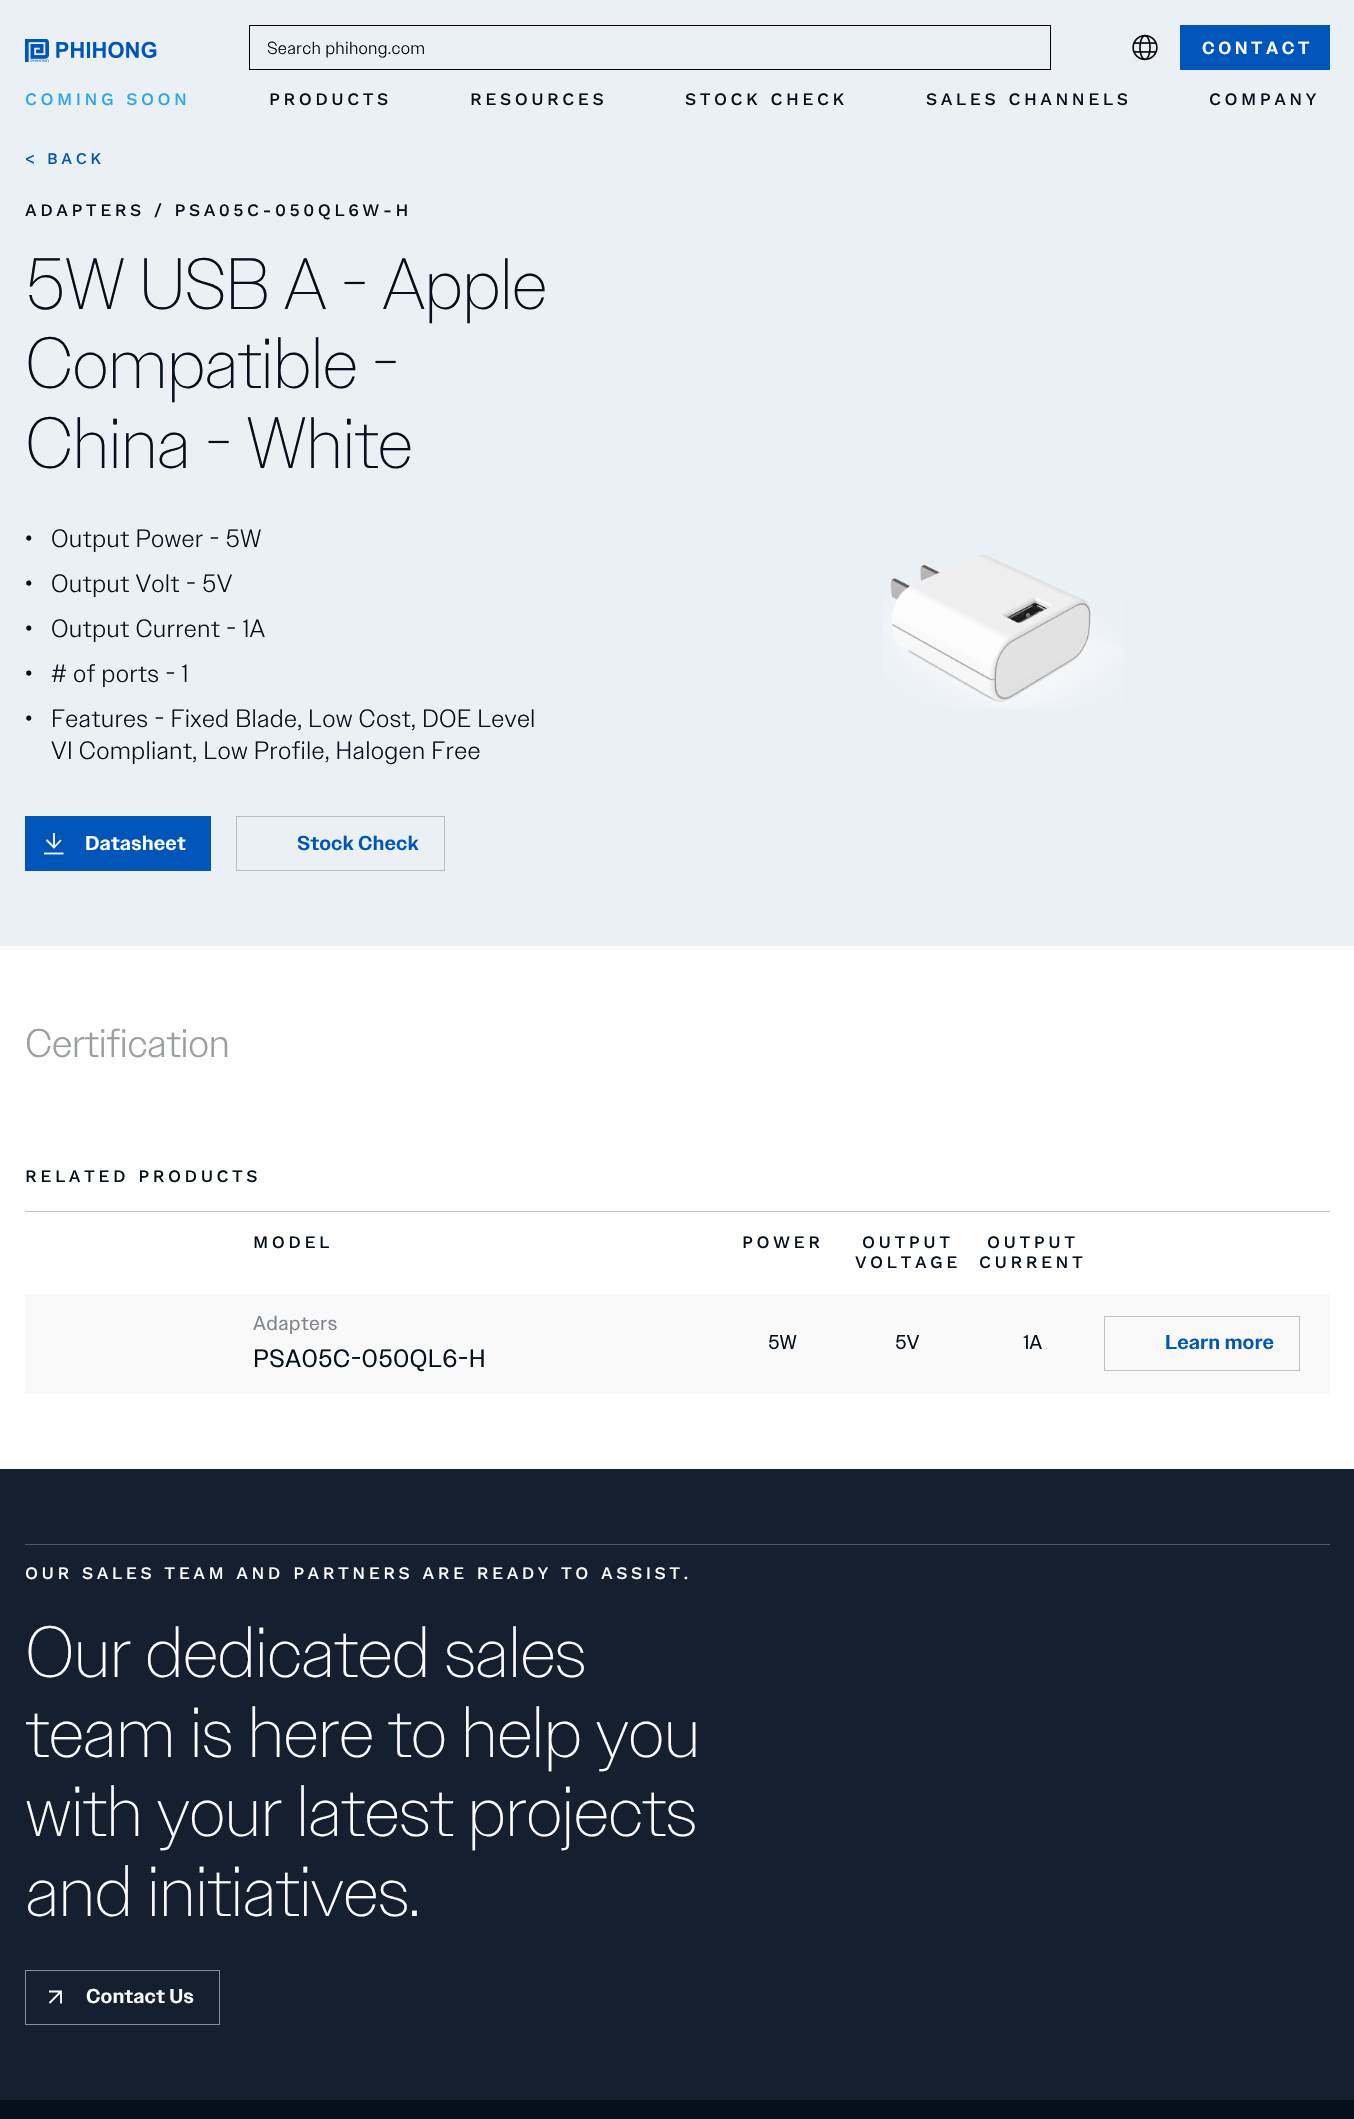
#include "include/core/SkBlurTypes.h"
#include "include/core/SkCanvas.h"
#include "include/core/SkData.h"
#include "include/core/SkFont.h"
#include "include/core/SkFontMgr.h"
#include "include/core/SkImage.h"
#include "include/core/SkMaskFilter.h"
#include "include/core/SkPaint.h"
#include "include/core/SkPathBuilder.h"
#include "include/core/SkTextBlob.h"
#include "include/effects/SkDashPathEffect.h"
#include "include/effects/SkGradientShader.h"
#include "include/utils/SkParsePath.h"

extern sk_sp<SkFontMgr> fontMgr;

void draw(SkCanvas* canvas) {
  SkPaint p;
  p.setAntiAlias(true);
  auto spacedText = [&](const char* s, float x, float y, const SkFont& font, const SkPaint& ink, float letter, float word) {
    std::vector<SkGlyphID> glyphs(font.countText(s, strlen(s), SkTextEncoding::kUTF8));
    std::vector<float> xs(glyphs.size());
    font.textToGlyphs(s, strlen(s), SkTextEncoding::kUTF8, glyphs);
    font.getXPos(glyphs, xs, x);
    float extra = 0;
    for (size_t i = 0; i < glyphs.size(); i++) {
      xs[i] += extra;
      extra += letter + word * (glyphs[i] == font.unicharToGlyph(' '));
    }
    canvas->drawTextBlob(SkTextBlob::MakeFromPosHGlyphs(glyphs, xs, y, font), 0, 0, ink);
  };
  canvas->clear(SK_ColorWHITE);
  p.setColor(SkColorSetRGB(235, 240, 245));
  canvas->drawRect(SkRect::MakeLTRB(0, 0, 1354, 946), p);
  canvas->drawImageRect(SkImages::DeferredFromEncodedData(SkData::MakeFromFileName("images/1.png")), SkRect::MakeLTRB(25, 39, 157, 62), SkSamplingOptions());
  p.setStyle(SkPaint::kStroke_Style);
  p.setStrokeWidth(1);
  p.setColor(SK_ColorBLACK);
  canvas->drawRect(SkRect::MakeLTRB(249.5f, 25.5f, 1050.5f, 69.5f), p);
  canvas->drawImageRect(SkImages::DeferredFromEncodedData(SkData::MakeFromFileName("images/2.png")), SkRect::MakeLTRB(1132, 34, 1158, 61), SkSamplingOptions());
  p.setStyle(SkPaint::kFill_Style);
  p.setColor(SkColorSetRGB(0, 85, 184));
  canvas->drawRect(SkRect::MakeLTRB(1180, 25, 1330, 70), p);
  canvas->drawRect(SkRect::MakeLTRB(25, 816, 211, 871), p);
  p.setStyle(SkPaint::kStroke_Style);
  p.setStrokeWidth(1.8f);
  p.setColor(SK_ColorWHITE);
  canvas->drawPath(SkPathBuilder().moveTo(61, 840).lineTo(54, 847.5f).lineTo(46.5f, 840).detach(), p);
  p.setStyle(SkPaint::kFill_Style);
  p.setColor(SkColorSetARGB(230, 255, 255, 255));
  canvas->drawRect(SkRect::MakeLTRB(53, 833, 55, 848), p);
  p.setStyle(SkPaint::kStroke_Style);
  p.setColor(SK_ColorWHITE);
  canvas->drawPath(SkPathBuilder().moveTo(44, 853.5f).lineTo(63.5f, 853.5f).detach(), p);
  p.setStrokeWidth(1);
  p.setColor(SkColorSetRGB(186, 189, 193));
  canvas->drawRect(SkRect::MakeLTRB(236.5f, 816.5f, 444.5f, 870.5f), p);
  canvas->drawImageRect(SkImages::DeferredFromEncodedData(SkData::MakeFromFileName("images/3.png")), SkRect::MakeLTRB(882, 554, 1124, 710), SkSamplingOptions());
  p.setStyle(SkPaint::kFill_Style);
  p.setColor(SkColorSetRGB(193, 195, 198));
  canvas->drawRect(SkRect::MakeLTRB(25, 1211, 1330, 1212), p);
  p.setColor(SkColorSetRGB(249, 249, 249));
  canvas->drawRect(SkRect::MakeLTRB(25, 1294, 1330, 1394), p);
  p.setStyle(SkPaint::kStroke_Style);
  p.setColor(SkColorSetRGB(193, 194, 195));
  canvas->drawRect(SkRect::MakeLTRB(1104.5f, 1316.5f, 1299.5f, 1370.5f), p);
  p.setStyle(SkPaint::kFill_Style);
  p.setColor(SkColorSetRGB(20, 31, 48));
  canvas->drawRect(SkRect::MakeLTRB(0, 1469, 1354, 2100), p);
  p.setColor(SkColorSetRGB(79, 87, 100));
  canvas->drawRect(SkRect::MakeLTRB(25, 1544, 1330, 1545), p);
  p.setStyle(SkPaint::kStroke_Style);
  p.setColor(SkColorSetRGB(138, 143, 152));
  canvas->drawRect(SkRect::MakeLTRB(25.5f, 1970.5f, 219.5f, 2024.5f), p);
  p.setStrokeWidth(1.8f);
  p.setColor(SK_ColorWHITE);
  canvas->drawPath(SkPathBuilder().moveTo(49, 1991.5f).lineTo(61, 1991.5f).lineTo(61, 2003.5f).moveTo(61, 1991.5f).lineTo(49.5f, 2003).detach(), p);
  p.setStyle(SkPaint::kFill_Style);
  p.setColor(SkColorSetRGB(6, 16, 28));
  canvas->drawRect(SkRect::MakeLTRB(0, 2100, 1354, 2119), p);
  SkFont font1(fontMgr->matchFamilyStyle("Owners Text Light", SkFontStyle(300, SkFontStyle::kNormal_Width, SkFontStyle::kUpright_Slant)), 17.5f);
  font1.setSubpixel(true);
  p.setColor(SK_ColorBLACK);
  spacedText("Search phihong.com", 267, 54, font1, p, 0.25f, 0);
  SkFont font2(fontMgr->matchFamilyStyle("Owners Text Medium", SkFontStyle(500, SkFontStyle::kNormal_Width, SkFontStyle::kUpright_Slant)), 17.5f);
  font2.setSubpixel(true);
  p.setColor(SK_ColorWHITE);
  spacedText("CONTACT", 1202, 54, font2, p, 3.5f, 0);
  SkFont font3(fontMgr->matchFamilyStyle("Work Sans", SkFontStyle(500, SkFontStyle::kNormal_Width, SkFontStyle::kUpright_Slant)), 17.5f);
  font3.setSubpixel(true);
  p.setColor(SkColorSetRGB(44, 164, 237));
  spacedText("COMING SOON", 25, 105, font3, p, 3.5f, 0);
  p.setColor(SkColorSetRGB(6, 16, 28));
  spacedText("PRODUCTS", 269, 105, font3, p, 3.5f, 0);
  spacedText("RESOURCES", 470, 105, font3, p, 3.5f, 0);
  spacedText("STOCK CHECK", 685, 105, font3, p, 3.5f, 0);
  spacedText("SALES CHANNELS", 926, 105, font3, p, 3.5f, 0);
  spacedText("COMPANY", 1209, 105, font3, p, 3.5f, 0);
  SkFont font4(fontMgr->matchFamilyStyle("Work Sans", SkFontStyle(500, SkFontStyle::kNormal_Width, SkFontStyle::kUpright_Slant)), 16.25f);
  font4.setSubpixel(true);
  p.setColor(SkColorSetRGB(0, 85, 184));
  spacedText("< BACK", 25, 164, font4, p, 3.5f, 0);
  p.setColor(SkColorSetRGB(6, 16, 28));
  spacedText("ADAPTERS / PSA05C-050QL6W-H", 25, 216, font3, p, 3.5f, 0);
  SkFont font5(fontMgr->matchFamilyStyle("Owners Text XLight", SkFontStyle(300, SkFontStyle::kNormal_Width, SkFontStyle::kUpright_Slant)), 72.5f);
  font5.setSubpixel(true);
  spacedText("5W USB A - Apple", 25, 309, font5, p, -1.45f, 0);
  spacedText("Compatible -", 25, 388, font5, p, -1.45f, 0);
  spacedText("China - White", 25, 468, font5, p, -1.45f, 0);
  SkFont font6(fontMgr->matchFamilyStyle("Owners Text Light", SkFontStyle(300, SkFontStyle::kNormal_Width, SkFontStyle::kUpright_Slant)), 25);
  font6.setSubpixel(true);
  spacedText("•", 25, 547, font6, p, 0.25f, 0);
  spacedText("Output Power - 5W", 51, 547, font6, p, 0.25f, 0);
  spacedText("•", 25, 592, font6, p, 0.25f, 0);
  spacedText("Output Volt - 5V", 51, 592, font6, p, 0.25f, 0);
  spacedText("•", 25, 637, font6, p, 0.25f, 0);
  spacedText("Output Current - 1A", 51, 637, font6, p, 0.25f, 0);
  spacedText("•", 25, 682, font6, p, 0.25f, 0);
  spacedText("# of ports - 1", 51, 682, font6, p, 0.25f, 0);
  spacedText("•", 25, 727, font6, p, 0.25f, 0);
  spacedText("Features - Fixed Blade, Low Cost, DOE Level", 51, 727, font6, p, 0.25f, 0);
  spacedText("VI Compliant, Low Profile, Halogen Free", 51, 759, font6, p, 0.25f, 0);
  SkFont font7(fontMgr->matchFamilyStyle("Owners Text Medium", SkFontStyle(500, SkFontStyle::kNormal_Width, SkFontStyle::kUpright_Slant)), 20);
  font7.setSubpixel(true);
  p.setColor(SK_ColorWHITE);
  canvas->drawString("Datasheet", 85, 850, font7, p);
  p.setColor(SkColorSetRGB(0, 85, 184));
  canvas->drawString("Stock Check", 297, 850, font7, p);
  SkFont font8(fontMgr->matchFamilyStyle("Owners Text Light", SkFontStyle(300, SkFontStyle::kNormal_Width, SkFontStyle::kUpright_Slant)), 40);
  font8.setSubpixel(true);
  p.setColor(SkColorSetRGB(155, 159, 164));
  spacedText("Certification", 25, 1057, font8, p, -0.75f, 0);
  p.setColor(SkColorSetRGB(6, 16, 28));
  spacedText("RELATED PRODUCTS", 25, 1182, font3, p, 3.5f, 0);
  spacedText("MODEL", 253, 1248, font3, p, 3.5f, 0);
  spacedText("POWER", 742, 1248, font3, p, 3.5f, 0);
  spacedText("OUTPUT", 862, 1248, font3, p, 3.5f, 0);
  spacedText("VOLTAGE", 855, 1268, font3, p, 3.5f, 0);
  spacedText("OUTPUT", 987, 1248, font3, p, 3.5f, 0);
  spacedText("CURRENT", 979, 1268, font3, p, 3.5f, 0);
  SkFont font9(fontMgr->matchFamilyStyle("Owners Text", SkFontStyle::Normal()), 20);
  font9.setSubpixel(true);
  p.setColor(SkColorSetRGB(128, 133, 139));
  spacedText("Adapters", 253, 1330, font9, p, 0.25f, 0);
  SkFont font10(fontMgr->matchFamilyStyle("Owners Text", SkFontStyle::Normal()), 25);
  font10.setSubpixel(true);
  p.setColor(SkColorSetRGB(6, 16, 28));
  spacedText("PSA05C-050QL6-H", 253, 1367, font10, p, 0.25f, 0);
  canvas->drawString("5W", 768, 1349, font9, p);
  canvas->drawString("5V", 895, 1349, font9, p);
  canvas->drawString("1A", 1023, 1349, font9, p);
  p.setColor(SkColorSetRGB(0, 85, 184));
  canvas->drawString("Learn more", 1165, 1349, font7, p);
  p.setColor(SK_ColorWHITE);
  spacedText("OUR SALES TEAM AND PARTNERS ARE READY TO ASSIST.", 25, 1579, font3, p, 3.5f, 0);
  spacedText("Our dedicated sales", 25, 1677, font5, p, -1.45f, 0);
  spacedText("team is here to help you", 25, 1757, font5, p, -1.45f, 0);
  spacedText("with your latest projects", 25, 1836, font5, p, -1.45f, 0);
  spacedText("and initiatives.", 25, 1916, font5, p, -1.45f, 0);
  canvas->drawString("Contact Us", 86, 2003, font7, p);
}
